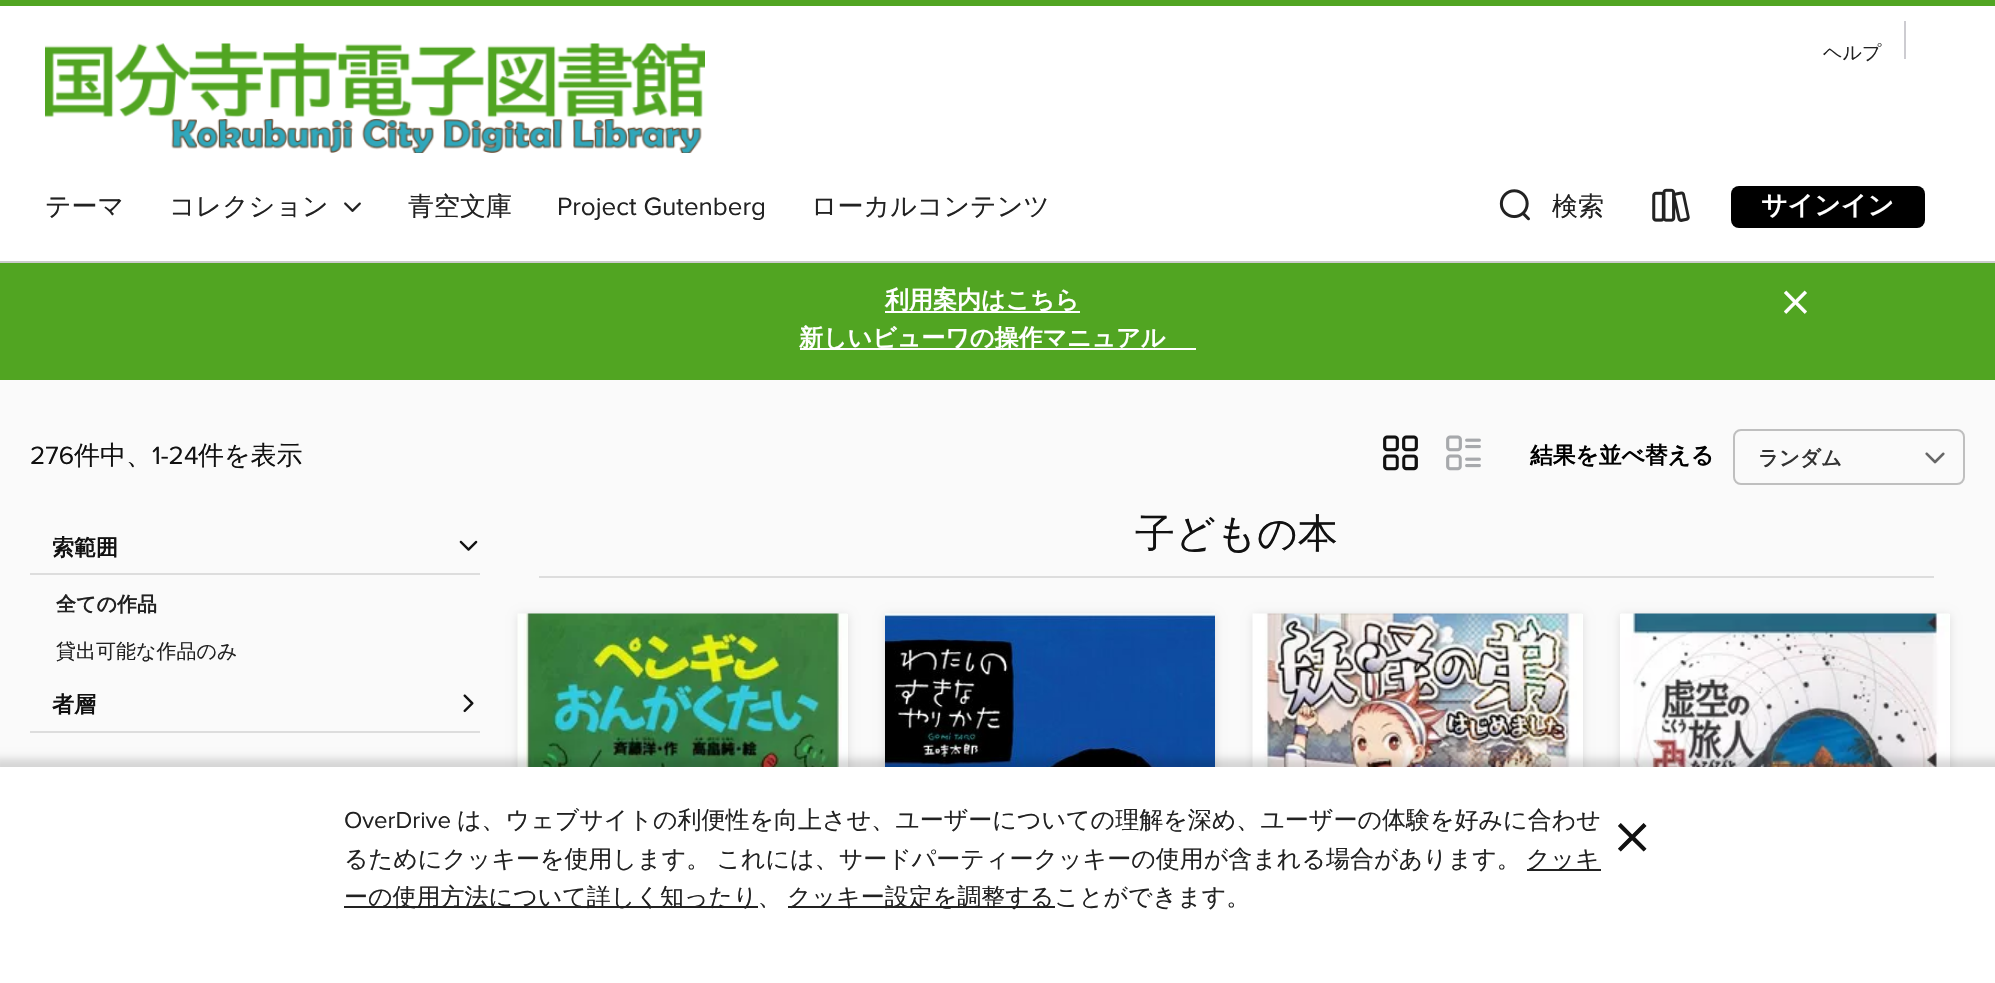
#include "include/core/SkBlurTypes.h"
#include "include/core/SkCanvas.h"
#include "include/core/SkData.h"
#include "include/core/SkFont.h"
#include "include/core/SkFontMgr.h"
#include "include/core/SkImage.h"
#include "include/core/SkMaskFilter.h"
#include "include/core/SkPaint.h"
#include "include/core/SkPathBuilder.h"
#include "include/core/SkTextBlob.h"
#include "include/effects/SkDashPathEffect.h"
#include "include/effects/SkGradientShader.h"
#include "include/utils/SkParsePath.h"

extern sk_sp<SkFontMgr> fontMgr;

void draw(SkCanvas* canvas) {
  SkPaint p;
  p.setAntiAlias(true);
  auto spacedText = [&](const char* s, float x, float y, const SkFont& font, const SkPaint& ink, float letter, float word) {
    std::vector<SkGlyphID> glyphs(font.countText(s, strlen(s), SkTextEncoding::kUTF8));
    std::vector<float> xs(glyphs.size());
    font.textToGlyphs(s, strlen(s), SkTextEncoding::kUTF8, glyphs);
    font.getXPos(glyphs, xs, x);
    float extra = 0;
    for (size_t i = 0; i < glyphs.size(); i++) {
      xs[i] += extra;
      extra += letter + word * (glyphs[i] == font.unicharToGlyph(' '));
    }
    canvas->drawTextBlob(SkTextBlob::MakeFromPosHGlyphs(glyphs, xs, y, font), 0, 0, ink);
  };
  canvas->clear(SkColorSetRGB(250, 250, 250));
  p.setColor(SK_ColorWHITE);
  canvas->drawRect(SkRect::MakeLTRB(0, 6, 1995, 261), p);
  p.setColor(SkColorSetRGB(81, 165, 34));
  canvas->drawRect(SkRect::MakeLTRB(0, 0, 1995, 6), p);
  p.setColor(SkColorSetRGB(204, 204, 204));
  canvas->drawRect(SkRect::MakeLTRB(0, 261, 1995, 263), p);
  canvas->drawImageRect(SkImages::DeferredFromEncodedData(SkData::MakeFromFileName("images/1.png")), SkRect::MakeLTRB(45, 43, 705, 153), SkSamplingOptions());
  p.setColor(SkColorSetRGB(205, 204, 209));
  canvas->drawRect(SkRect::MakeLTRB(1904, 21, 1906, 59), p);
  canvas->drawImageRect(SkImages::DeferredFromEncodedData(SkData::MakeFromFileName("images/2.png")), SkRect::MakeLTRB(344, 202, 361, 212), SkSamplingOptions());
  canvas->drawImageRect(SkImages::DeferredFromEncodedData(SkData::MakeFromFileName("images/3.png")), SkRect::MakeLTRB(1499, 189, 1530, 221), SkSamplingOptions());
  canvas->drawImageRect(SkImages::DeferredFromEncodedData(SkData::MakeFromFileName("images/4.png")), SkRect::MakeLTRB(1652, 188, 1690, 222), SkSamplingOptions());
  p.setColor(SK_ColorBLACK);
  canvas->drawRoundRect(SkRect::MakeLTRB(1731, 186, 1925, 228), 8, 8, p);
  p.setColor(SkColorSetRGB(81, 165, 34));
  canvas->drawRect(SkRect::MakeLTRB(0, 263, 1995, 380), p);
  p.setColor(SK_ColorWHITE);
  canvas->drawRect(SkRect::MakeLTRB(885, 311, 1080, 313), p);
  canvas->drawRect(SkRect::MakeLTRB(800, 348, 1196, 350), p);
  canvas->drawImageRect(SkImages::DeferredFromEncodedData(SkData::MakeFromFileName("images/5.png")), SkRect::MakeLTRB(1383, 435, 1418, 471), SkSamplingOptions());
  canvas->drawImageRect(SkImages::DeferredFromEncodedData(SkData::MakeFromFileName("images/6.png")), SkRect::MakeLTRB(1446, 435, 1481, 471), SkSamplingOptions());
  p.setStyle(SkPaint::kStroke_Style);
  p.setStrokeWidth(2);
  p.setColor(SkColorSetRGB(191, 191, 191));
  canvas->drawRoundRect(SkRect::MakeLTRB(1734, 430, 1964, 484), 7, 7, p);
  canvas->drawImageRect(SkImages::DeferredFromEncodedData(SkData::MakeFromFileName("images/7.png")), SkRect::MakeLTRB(1925, 452, 1945, 464), SkSamplingOptions());
  canvas->drawImageRect(SkImages::DeferredFromEncodedData(SkData::MakeFromFileName("images/8.png")), SkRect::MakeLTRB(459, 540, 478, 551), SkSamplingOptions());
  p.setStyle(SkPaint::kFill_Style);
  p.setColor(SkColorSetRGB(221, 221, 221));
  canvas->drawRect(SkRect::MakeLTRB(30, 573, 480, 575), p);
  canvas->drawImageRect(SkImages::DeferredFromEncodedData(SkData::MakeFromFileName("images/9.png")), SkRect::MakeLTRB(463, 694, 474, 713), SkSamplingOptions());
  canvas->drawRect(SkRect::MakeLTRB(30, 731, 480, 733), p);
  canvas->drawRect(SkRect::MakeLTRB(539, 576, 1934, 578), p);
  p.setMaskFilter(SkMaskFilter::MakeBlur(kNormal_SkBlurStyle, 4.5f));
  canvas->drawRect(SkRect::MakeLTRB(518, 615, 848, 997), p);
  p.setMaskFilter(nullptr);
  p.setColor(SkColorSetRGB(255, 255, 253));
  canvas->drawRect(SkRect::MakeLTRB(847, 614, 848, 767), p);
  canvas->drawImageRect(SkImages::DeferredFromEncodedData(SkData::MakeFromFileName("images/10.png")), SkRect::MakeLTRB(517, 613, 847, 767), SkSamplingOptions());
  p.setColor(SkColorSetRGB(221, 221, 221));
  p.setMaskFilter(SkMaskFilter::MakeBlur(kNormal_SkBlurStyle, 4.5f));
  canvas->drawRect(SkRect::MakeLTRB(885, 615, 1215, 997), p);
  p.setMaskFilter(nullptr);
  canvas->drawImageRect(SkImages::DeferredFromEncodedData(SkData::MakeFromFileName("images/11.png")), SkRect::MakeLTRB(885, 613, 1215, 767), SkSamplingOptions());
  p.setMaskFilter(SkMaskFilter::MakeBlur(kNormal_SkBlurStyle, 4.5f));
  canvas->drawRect(SkRect::MakeLTRB(1253, 615, 1583, 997), p);
  p.setMaskFilter(nullptr);
  p.setColor(SK_ColorWHITE);
  canvas->drawRect(SkRect::MakeLTRB(1582, 614, 1583, 767), p);
  canvas->drawImageRect(SkImages::DeferredFromEncodedData(SkData::MakeFromFileName("images/12.png")), SkRect::MakeLTRB(1252, 613, 1582, 767), SkSamplingOptions());
  p.setColor(SkColorSetRGB(221, 221, 221));
  p.setMaskFilter(SkMaskFilter::MakeBlur(kNormal_SkBlurStyle, 4.5f));
  canvas->drawRect(SkRect::MakeLTRB(1620, 615, 1950, 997), p);
  p.setMaskFilter(nullptr);
  p.setColor(SK_ColorWHITE);
  canvas->drawRect(SkRect::MakeLTRB(1620, 614, 1950, 767), p);
  canvas->drawImageRect(SkImages::DeferredFromEncodedData(SkData::MakeFromFileName("images/13.png")), SkRect::MakeLTRB(1621, 613, 1949, 767), SkSamplingOptions());
  p.setColor(SkColorSetARGB(38, 0, 0, 0));
  p.setMaskFilter(SkMaskFilter::MakeBlur(kNormal_SkBlurStyle, 4));
  canvas->drawRect(SkRect::MakeLTRB(-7, 759, 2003, 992), p);
  p.setMaskFilter(nullptr);
  p.setColor(SK_ColorWHITE);
  canvas->drawRect(SkRect::MakeLTRB(0, 767, 1995, 983), p);
  p.setColor(SkColorSetRGB(34, 34, 34));
  canvas->drawRect(SkRect::MakeLTRB(1527, 869, 1601, 871), p);
  canvas->drawRect(SkRect::MakeLTRB(344, 906, 758, 908), p);
  canvas->drawRect(SkRect::MakeLTRB(788, 906, 1055, 908), p);
  SkFont font1(fontMgr->matchFamilyStyle("WenQuanYi Zen Hei", SkFontStyle(500, SkFontStyle::kNormal_Width, SkFontStyle::kUpright_Slant)), 19);
  font1.setSubpixel(true);
  canvas->drawString("ヘルプ", 1823, 59, font1, p);
  SkFont font2(fontMgr->matchFamilyStyle("WenQuanYi Zen Hei", SkFontStyle(500, SkFontStyle::kNormal_Width, SkFontStyle::kUpright_Slant)), 26);
  font2.setSubpixel(true);
  canvas->drawString("テーマ", 45, 215, font2, p);
  canvas->drawString("コレクション", 169, 215, font2, p);
  canvas->drawString("青空文庫", 408, 215, font2, p);
  SkFont font3(fontMgr->matchFamilyStyle("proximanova", SkFontStyle::Normal()), 26);
  font3.setSubpixel(true);
  canvas->drawString("Project Gutenberg", 557, 215, font3, p);
  canvas->drawString("ローカルコンテンツ", 811, 215, font2, p);
  canvas->drawString("検索", 1552, 215, font2, p);
  SkFont font4(fontMgr->matchFamilyStyle("WenQuanYi Zen Hei", SkFontStyle::Bold()), 26);
  font4.setSubpixel(true);
  p.setColor(SK_ColorWHITE);
  canvas->drawString("サインイン", 1761, 214, font4, p);
  SkFont font5(fontMgr->matchFamilyStyle("WenQuanYi Zen Hei", SkFontStyle::Bold()), 24);
  font5.setSubpixel(true);
  canvas->drawString("利用案内はこちら", 885, 308, font5, p);
  canvas->drawString("新しいビューワの操作マニュアル", 799, 346, font5, p);
  SkFont font6(fontMgr->matchFamilyStyle("proximanova", SkFontStyle::Normal()), 62);
  font6.setSubpixel(true);
  canvas->drawString("×", 1780, 323, font6, p);
  p.setColor(SkColorSetRGB(17, 17, 17));
  canvas->drawString("276", 30, 464, font3, p);
  canvas->drawString("件中、", 74, 464, font2, p);
  canvas->drawString("1-24", 152, 464, font3, p);
  canvas->drawString("件を表示", 198, 464, font2, p);
  SkFont font7(fontMgr->matchFamilyStyle("WenQuanYi Zen Hei", SkFontStyle::Bold()), 22.75f);
  font7.setSubpixel(true);
  p.setColor(SK_ColorBLACK);
  canvas->drawString("結果を並べ替える", 1530, 463, font7, p);
  SkFont font8(fontMgr->matchFamilyStyle("WenQuanYi Zen Hei", SkFontStyle::Bold()), 20.5f);
  font8.setSubpixel(true);
  p.setColor(SkColorSetRGB(51, 51, 51));
  canvas->drawString("ランダム", 1758, 465, font8, p);
  SkFont font9(fontMgr->matchFamilyStyle("Noto Sans", SkFontStyle(100, SkFontStyle::kNormal_Width, SkFontStyle::kUpright_Slant)), 22);
  font9.setSubpixel(true);
  p.setColor(SkColorSetRGB(17, 17, 17));
  canvas->drawString("検", 30, 555, font9, p);
  SkFont font10(fontMgr->matchFamilyStyle("WenQuanYi Zen Hei", SkFontStyle::Bold()), 22);
  font10.setSubpixel(true);
  canvas->drawString("索範囲", 52, 555, font10, p);
  SkFont font11(fontMgr->matchFamilyStyle("WenQuanYi Zen Hei", SkFontStyle::Bold()), 20);
  font11.setSubpixel(true);
  p.setColor(SkColorSetRGB(34, 34, 34));
  canvas->drawString("全ての作品", 56, 611, font11, p);
  SkFont font12(fontMgr->matchFamilyStyle("WenQuanYi Zen Hei", SkFontStyle(500, SkFontStyle::kNormal_Width, SkFontStyle::kUpright_Slant)), 20);
  font12.setSubpixel(true);
  canvas->drawString("貸出可能な作品のみ", 56, 658, font12, p);
  p.setColor(SkColorSetRGB(17, 17, 17));
  canvas->drawString("読", 30, 712, font9, p);
  canvas->drawString("者層", 52, 712, font10, p);
  SkFont font13(fontMgr->matchFamilyStyle("WenQuanYi Zen Hei", SkFontStyle(500, SkFontStyle::kNormal_Width, SkFontStyle::kUpright_Slant)), 40);
  font13.setSubpixel(true);
  canvas->drawString("子どもの本", 1135, 547, font13, p);
  SkFont font14(fontMgr->matchFamilyStyle("proximanova", SkFontStyle::Normal()), 24);
  font14.setSubpixel(true);
  p.setColor(SkColorSetRGB(34, 34, 34));
  canvas->drawString("OverDrive", 344, 828, font14, p);
  SkFont font15(fontMgr->matchFamilyStyle("WenQuanYi Zen Hei", SkFontStyle(500, SkFontStyle::kNormal_Width, SkFontStyle::kUpright_Slant)), 24);
  font15.setSubpixel(true);
  canvas->drawString("は、ウェブサイトの利便性を向上させ、ユーザーについての理解を深め、ユーザーの体験を好みに合わせ", 457, 828, font15, p);
  spacedText("るためにクッキーを使用します。 これには、サードパーティークッキーの使用が含まれる場合があります。", 344, 867, font15, p, 0, -1);
  canvas->drawString("クッキ", 1526, 867, font15, p);
  canvas->drawString("ーの使用方法について詳しく知ったり、", 344, 905, font15, p);
  canvas->drawString("クッキー設定を調整することができます。", 787, 905, font15, p);
  SkFont font16(fontMgr->matchFamilyStyle("proximanova", SkFontStyle::Normal()), 77);
  font16.setSubpixel(true);
  p.setColor(SkColorSetRGB(17, 17, 17));
  canvas->drawString("×", 1613, 863, font16, p);
}
